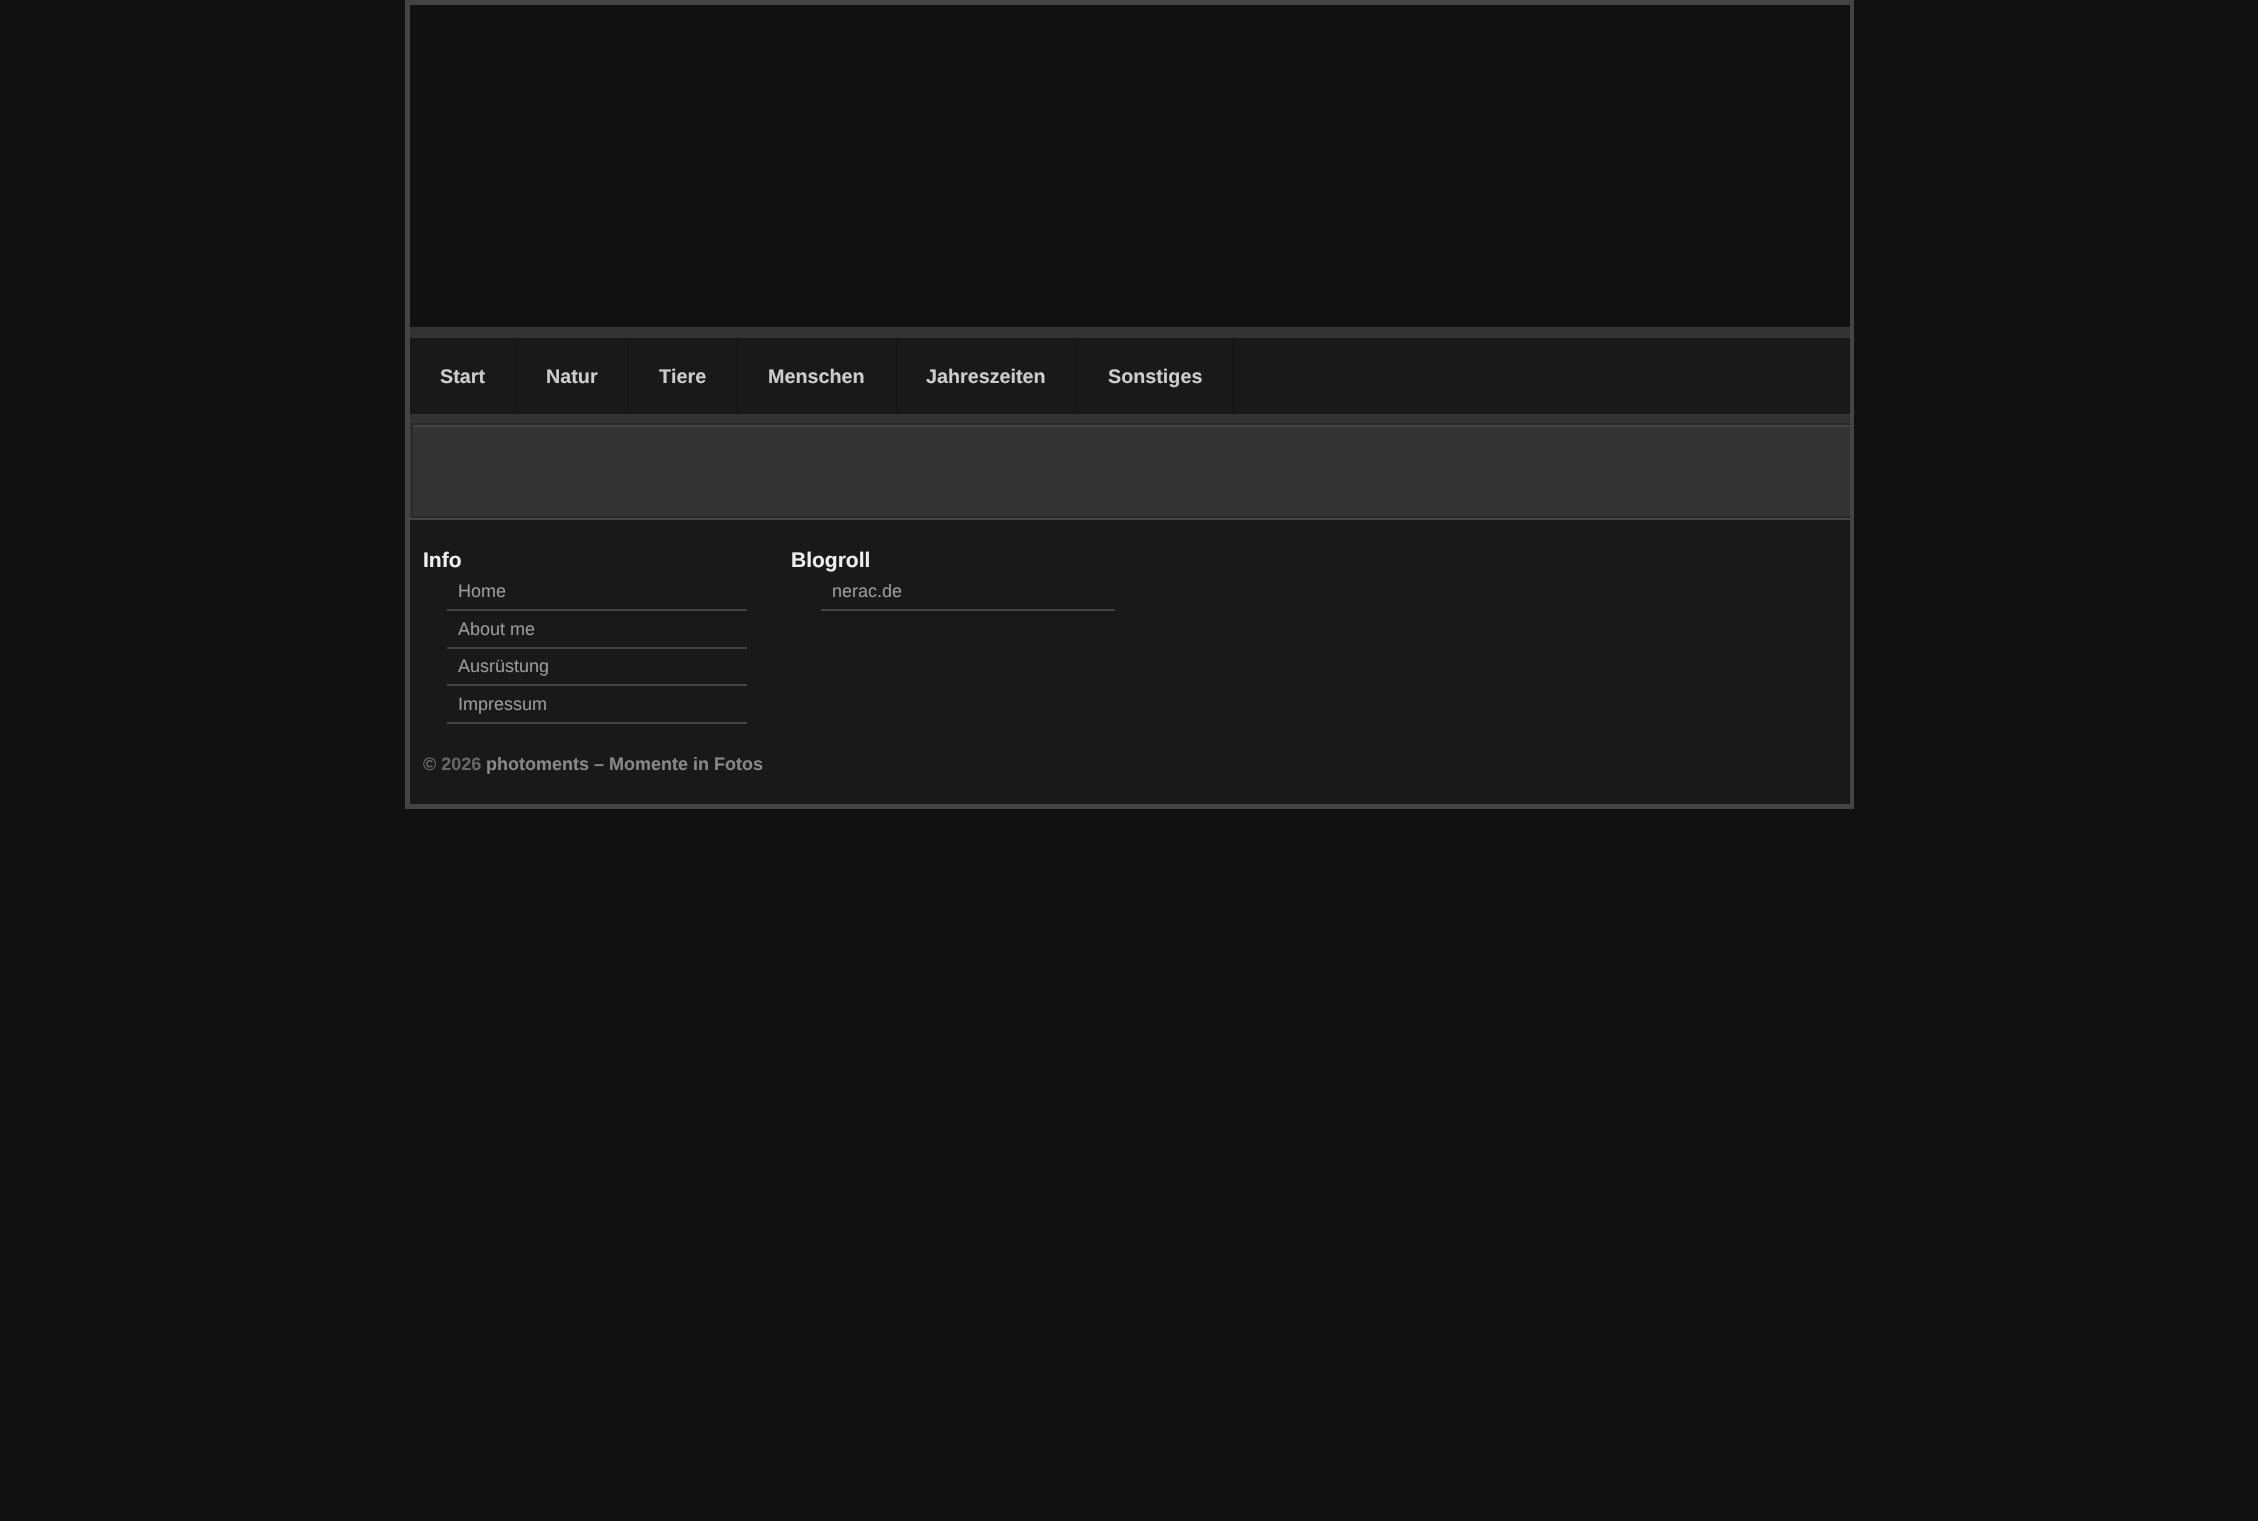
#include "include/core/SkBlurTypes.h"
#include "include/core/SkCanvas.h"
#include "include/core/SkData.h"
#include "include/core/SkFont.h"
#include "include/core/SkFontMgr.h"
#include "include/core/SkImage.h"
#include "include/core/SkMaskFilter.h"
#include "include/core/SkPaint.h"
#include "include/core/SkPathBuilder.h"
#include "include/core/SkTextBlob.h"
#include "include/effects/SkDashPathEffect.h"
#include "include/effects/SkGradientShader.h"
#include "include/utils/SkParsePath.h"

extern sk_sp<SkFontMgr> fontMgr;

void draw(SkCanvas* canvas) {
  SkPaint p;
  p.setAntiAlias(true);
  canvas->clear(SkColorSetRGB(17, 17, 17));
  p.setColor(SkColorSetRGB(51, 51, 51));
  canvas->drawRect(SkRect::MakeLTRB(410, 425, 411, 518), p);
  p.setStyle(SkPaint::kStroke_Style);
  p.setStrokeWidth(5);
  p.setColor(SkColorSetRGB(68, 68, 68));
  canvas->drawRect(SkRect::MakeLTRB(407.5f, 2.5f, 1851.5f, 806.5f), p);
  p.setStyle(SkPaint::kFill_Style);
  p.setColor(SkColorSetRGB(17, 17, 17));
  canvas->drawRect(SkRect::MakeLTRB(1849, 5, 1850, 327), p);
  p.setColor(SkColorSetRGB(51, 51, 51));
  canvas->drawRect(SkRect::MakeLTRB(410, 327, 1850, 338), p);
  p.setColor(SkColorSetRGB(25, 25, 25));
  canvas->drawRect(SkRect::MakeLTRB(410, 338, 1850, 414), p);
  p.setColor(SkColorSetRGB(22, 22, 22));
  canvas->drawRect(SkRect::MakeLTRB(515, 338, 516, 414), p);
  canvas->drawRect(SkRect::MakeLTRB(627, 338, 629, 414), p);
  canvas->drawRect(SkRect::MakeLTRB(737, 338, 738, 414), p);
  canvas->drawRect(SkRect::MakeLTRB(896, 338, 897, 414), p);
  canvas->drawRect(SkRect::MakeLTRB(1076, 338, 1077, 414), p);
  canvas->drawRect(SkRect::MakeLTRB(1232, 338, 1234, 414), p);
  p.setColor(SkColorSetRGB(51, 51, 51));
  canvas->drawRect(SkRect::MakeLTRB(410, 414, 1850, 423), p);
  p.setColor(SkColorSetRGB(42, 42, 42));
  canvas->drawRect(SkRect::MakeLTRB(410, 423, 1850, 425), p);
  p.setColor(SkColorSetRGB(51, 51, 51));
  canvas->drawRect(SkRect::MakeLTRB(413, 427, 1850, 516), p);
  p.setColor(SkColorSetRGB(68, 68, 68));
  canvas->drawRect(SkRect::MakeLTRB(411, 425, 1850, 427), p);
  p.setColor(SkColorSetRGB(42, 42, 42));
  canvas->drawRect(SkRect::MakeLTRB(411, 516, 1850, 518), p);
  canvas->drawRect(SkRect::MakeLTRB(411, 425, 413, 518), p);
  p.setColor(SkColorSetRGB(25, 25, 25));
  canvas->drawRect(SkRect::MakeLTRB(410, 520, 1850, 804), p);
  p.setColor(SkColorSetRGB(68, 68, 68));
  canvas->drawRect(SkRect::MakeLTRB(410, 518, 1850, 520), p);
  canvas->drawRect(SkRect::MakeLTRB(447, 609, 747, 611), p);
  canvas->drawRect(SkRect::MakeLTRB(447, 647, 747, 649), p);
  canvas->drawRect(SkRect::MakeLTRB(447, 684, 747, 686), p);
  canvas->drawRect(SkRect::MakeLTRB(447, 722, 747, 724), p);
  canvas->drawRect(SkRect::MakeLTRB(821, 609, 1115, 611), p);
  SkFont font1(fontMgr->matchFamilyStyle("Liberation Sans", SkFontStyle::Bold()), 19.75f);
  font1.setSubpixel(true);
  p.setColor(SkColorSetRGB(204, 204, 204));
  canvas->drawString("Start", 440, 383, font1, p);
  canvas->drawString("Natur", 546, 383, font1, p);
  canvas->drawString("Tiere", 659, 383, font1, p);
  canvas->drawString("Menschen", 768, 383, font1, p);
  canvas->drawString("Jahreszeiten", 926, 383, font1, p);
  canvas->drawString("Sonstiges", 1108, 383, font1, p);
  SkFont font2(fontMgr->matchFamilyStyle("Liberation Sans", SkFontStyle::Bold()), 21);
  font2.setSubpixel(true);
  p.setColor(SkColorSetRGB(238, 238, 238));
  canvas->drawString("Info", 423, 567, font2, p);
  SkFont font3(fontMgr->matchFamilyStyle("Liberation Sans", SkFontStyle::Normal()), 18);
  font3.setSubpixel(true);
  p.setColor(SkColorSetRGB(153, 153, 153));
  canvas->drawString("Home", 458, 597, font3, p);
  canvas->drawString("About me", 458, 635, font3, p);
  canvas->drawString("Ausrüstung", 458, 672, font3, p);
  canvas->drawString("Impressum", 458, 710, font3, p);
  p.setColor(SkColorSetRGB(238, 238, 238));
  canvas->drawString("Blogroll", 791, 567, font2, p);
  p.setColor(SkColorSetRGB(153, 153, 153));
  canvas->drawString("nerac.de", 832, 597, font3, p);
  SkFont font4(fontMgr->matchFamilyStyle("Liberation Sans", SkFontStyle::Bold()), 18);
  font4.setSubpixel(true);
  p.setColor(SkColorSetRGB(102, 102, 102));
  canvas->drawString("© 2026", 423, 770, font4, p);
  p.setColor(SkColorSetRGB(136, 136, 136));
  canvas->drawString("photoments – Momente in Fotos", 486, 770, font4, p);
}
